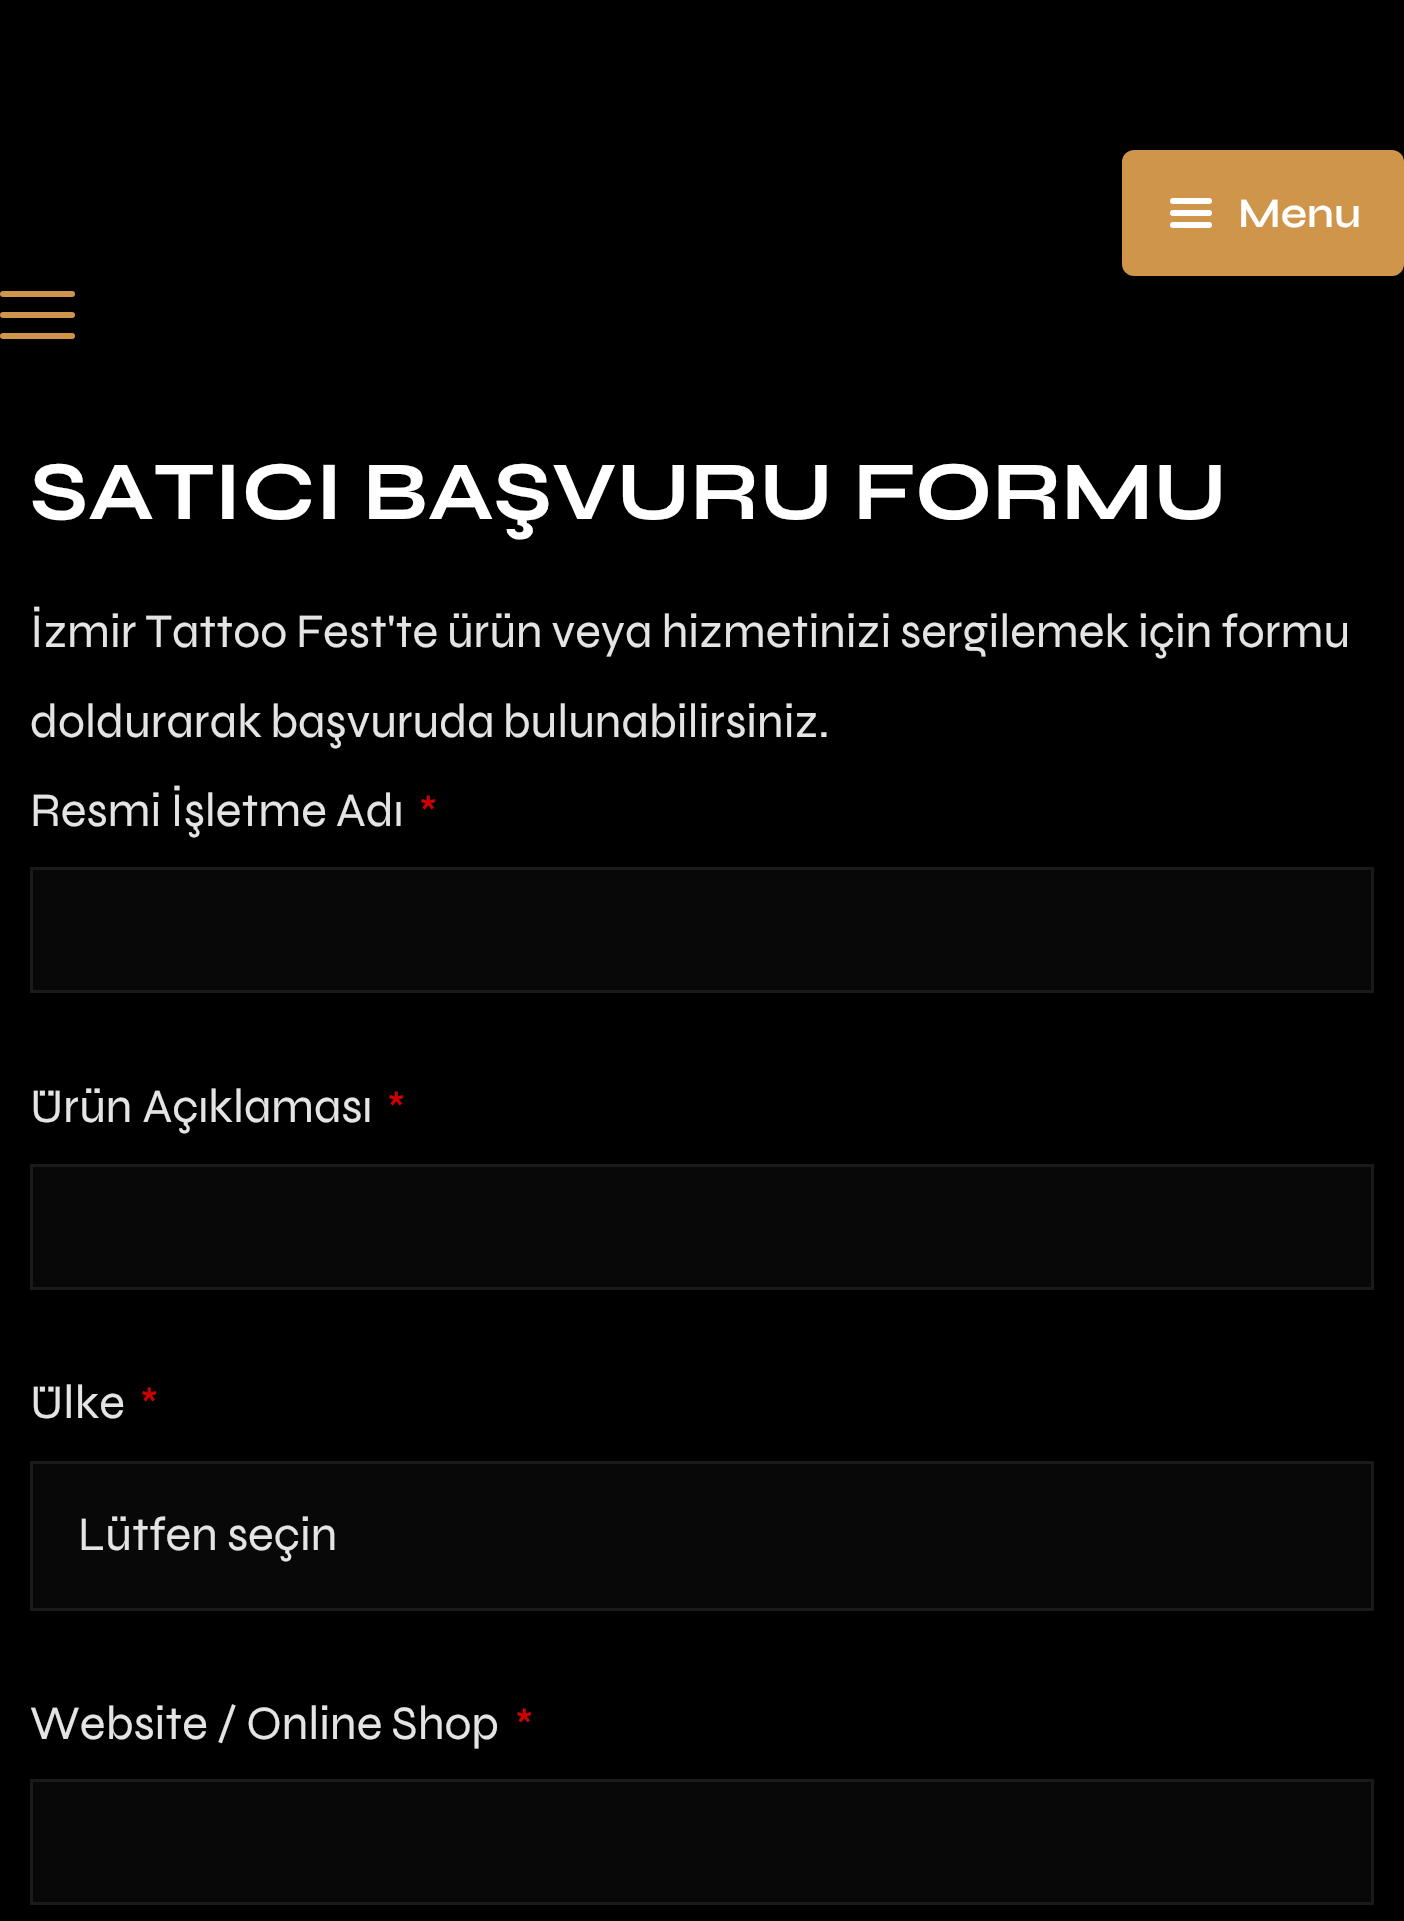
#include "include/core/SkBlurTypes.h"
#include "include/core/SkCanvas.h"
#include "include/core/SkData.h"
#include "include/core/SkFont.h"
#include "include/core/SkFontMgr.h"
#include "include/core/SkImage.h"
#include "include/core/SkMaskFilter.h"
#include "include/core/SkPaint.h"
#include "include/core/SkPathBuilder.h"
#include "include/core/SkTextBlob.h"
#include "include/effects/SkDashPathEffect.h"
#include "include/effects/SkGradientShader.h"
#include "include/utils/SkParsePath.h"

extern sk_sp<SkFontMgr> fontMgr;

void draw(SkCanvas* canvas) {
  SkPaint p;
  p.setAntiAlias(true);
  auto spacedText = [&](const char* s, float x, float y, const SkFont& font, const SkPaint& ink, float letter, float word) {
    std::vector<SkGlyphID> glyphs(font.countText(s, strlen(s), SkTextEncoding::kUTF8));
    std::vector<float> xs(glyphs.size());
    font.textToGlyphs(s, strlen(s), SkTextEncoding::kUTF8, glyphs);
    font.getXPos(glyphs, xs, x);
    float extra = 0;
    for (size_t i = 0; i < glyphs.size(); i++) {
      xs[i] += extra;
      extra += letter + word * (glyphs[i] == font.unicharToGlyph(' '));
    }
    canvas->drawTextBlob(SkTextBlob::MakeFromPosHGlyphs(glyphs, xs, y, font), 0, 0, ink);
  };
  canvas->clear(SK_ColorBLACK);
  p.setColor(SkColorSetRGB(206, 149, 75));
  canvas->drawRoundRect(SkRect::MakeLTRB(1122, 150, 1404, 276), 12, 12, p);
  p.setColor(SK_ColorWHITE);
  canvas->drawRoundRect(SkRect::MakeLTRB(1170, 198, 1212, 204), 3, 3, p);
  canvas->drawRoundRect(SkRect::MakeLTRB(1170, 210, 1212, 216), 3, 3, p);
  canvas->drawRoundRect(SkRect::MakeLTRB(1170, 222, 1212, 228), 3, 3, p);
  p.setColor(SkColorSetRGB(206, 149, 75));
  canvas->drawRoundRect(SkRect::MakeLTRB(0, 291, 75, 297), 3, 3, p);
  canvas->drawRoundRect(SkRect::MakeLTRB(0, 312, 75, 318), 3, 3, p);
  canvas->drawRoundRect(SkRect::MakeLTRB(0, 333, 75, 339), 3, 3, p);
  p.setColor(SkColorSetRGB(8, 8, 8));
  canvas->drawRect(SkRect::MakeLTRB(31.5f, 868.5f, 1372.5f, 991.5f), p);
  p.setStyle(SkPaint::kStroke_Style);
  p.setStrokeWidth(3);
  p.setColor(SkColorSetRGB(26, 26, 26));
  canvas->drawRect(SkRect::MakeLTRB(31.5f, 868.5f, 1372.5f, 991.5f), p);
  p.setStyle(SkPaint::kFill_Style);
  p.setColor(SkColorSetRGB(8, 8, 8));
  canvas->drawRect(SkRect::MakeLTRB(31.5f, 1165.5f, 1372.5f, 1288.5f), p);
  p.setStyle(SkPaint::kStroke_Style);
  p.setColor(SkColorSetRGB(26, 26, 26));
  canvas->drawRect(SkRect::MakeLTRB(31.5f, 1165.5f, 1372.5f, 1288.5f), p);
  p.setStyle(SkPaint::kFill_Style);
  p.setColor(SkColorSetRGB(8, 8, 8));
  canvas->drawRect(SkRect::MakeLTRB(31.5f, 1462.5f, 1372.5f, 1609.5f), p);
  p.setStyle(SkPaint::kStroke_Style);
  p.setColor(SkColorSetRGB(26, 26, 26));
  canvas->drawRect(SkRect::MakeLTRB(31.5f, 1462.5f, 1372.5f, 1609.5f), p);
  p.setStyle(SkPaint::kFill_Style);
  p.setColor(SkColorSetRGB(8, 8, 8));
  canvas->drawRect(SkRect::MakeLTRB(31.5f, 1780.5f, 1372.5f, 1903.5f), p);
  p.setStyle(SkPaint::kStroke_Style);
  p.setColor(SkColorSetRGB(26, 26, 26));
  canvas->drawRect(SkRect::MakeLTRB(31.5f, 1780.5f, 1372.5f, 1903.5f), p);
  SkFont font1(fontMgr->matchFamilyStyle("Syne", SkFontStyle(600, SkFontStyle::kNormal_Width, SkFontStyle::kUpright_Slant)), 42);
  font1.setSubpixel(true);
  p.setStyle(SkPaint::kFill_Style);
  p.setColor(SK_ColorWHITE);
  canvas->drawString("Menu", 1238, 227, font1, p);
  SkFont font2(fontMgr->matchFamilyStyle("Syne", SkFontStyle::Bold()), 83.6f);
  font2.setSubpixel(true);
  canvas->drawString("SATICI BAŞVURU FORMU", 30, 519, font2, p);
  SkFont font3(fontMgr->matchFamilyStyle("Syne", SkFontStyle::Normal()), 48);
  font3.setSubpixel(true);
  p.setColor(SkColorSetRGB(228, 228, 228));
  spacedText("İzmir Tattoo Fest'te ürün veya hizmetinizi sergilemek için formu", 30, 647, font3, p, 0, -1.25f);
  spacedText("doldurarak başvuruda bulunabilirsiniz.", 30, 737, font3, p, 0, -2);
  spacedText("Resmi İşletme Adı", 30, 826, font3, p, 0, -1);
  SkFont font4(fontMgr->matchFamilyStyle("Syne", SkFontStyle::Normal()), 43);
  font4.setSubpixel(true);
  p.setColor(SkColorSetRGB(204, 1, 1));
  canvas->drawString("*", 419, 826, font4, p);
  p.setColor(SkColorSetRGB(228, 228, 228));
  canvas->drawString("Ürün Açıklaması", 30, 1122, font3, p);
  p.setColor(SkColorSetRGB(204, 1, 1));
  canvas->drawString("*", 387, 1122, font4, p);
  p.setColor(SkColorSetRGB(228, 228, 228));
  canvas->drawString("Ülke", 30, 1418, font3, p);
  p.setColor(SkColorSetRGB(204, 1, 1));
  canvas->drawString("*", 140, 1418, font4, p);
  p.setColor(SkColorSetRGB(228, 228, 228));
  spacedText("Lütfen seçin", 78, 1550, font3, p, 0, -1);
  spacedText("Website / Online Shop", 30, 1739, font3, p, 0, -1);
  p.setColor(SkColorSetRGB(204, 1, 1));
  canvas->drawString("*", 515, 1739, font4, p);
}
